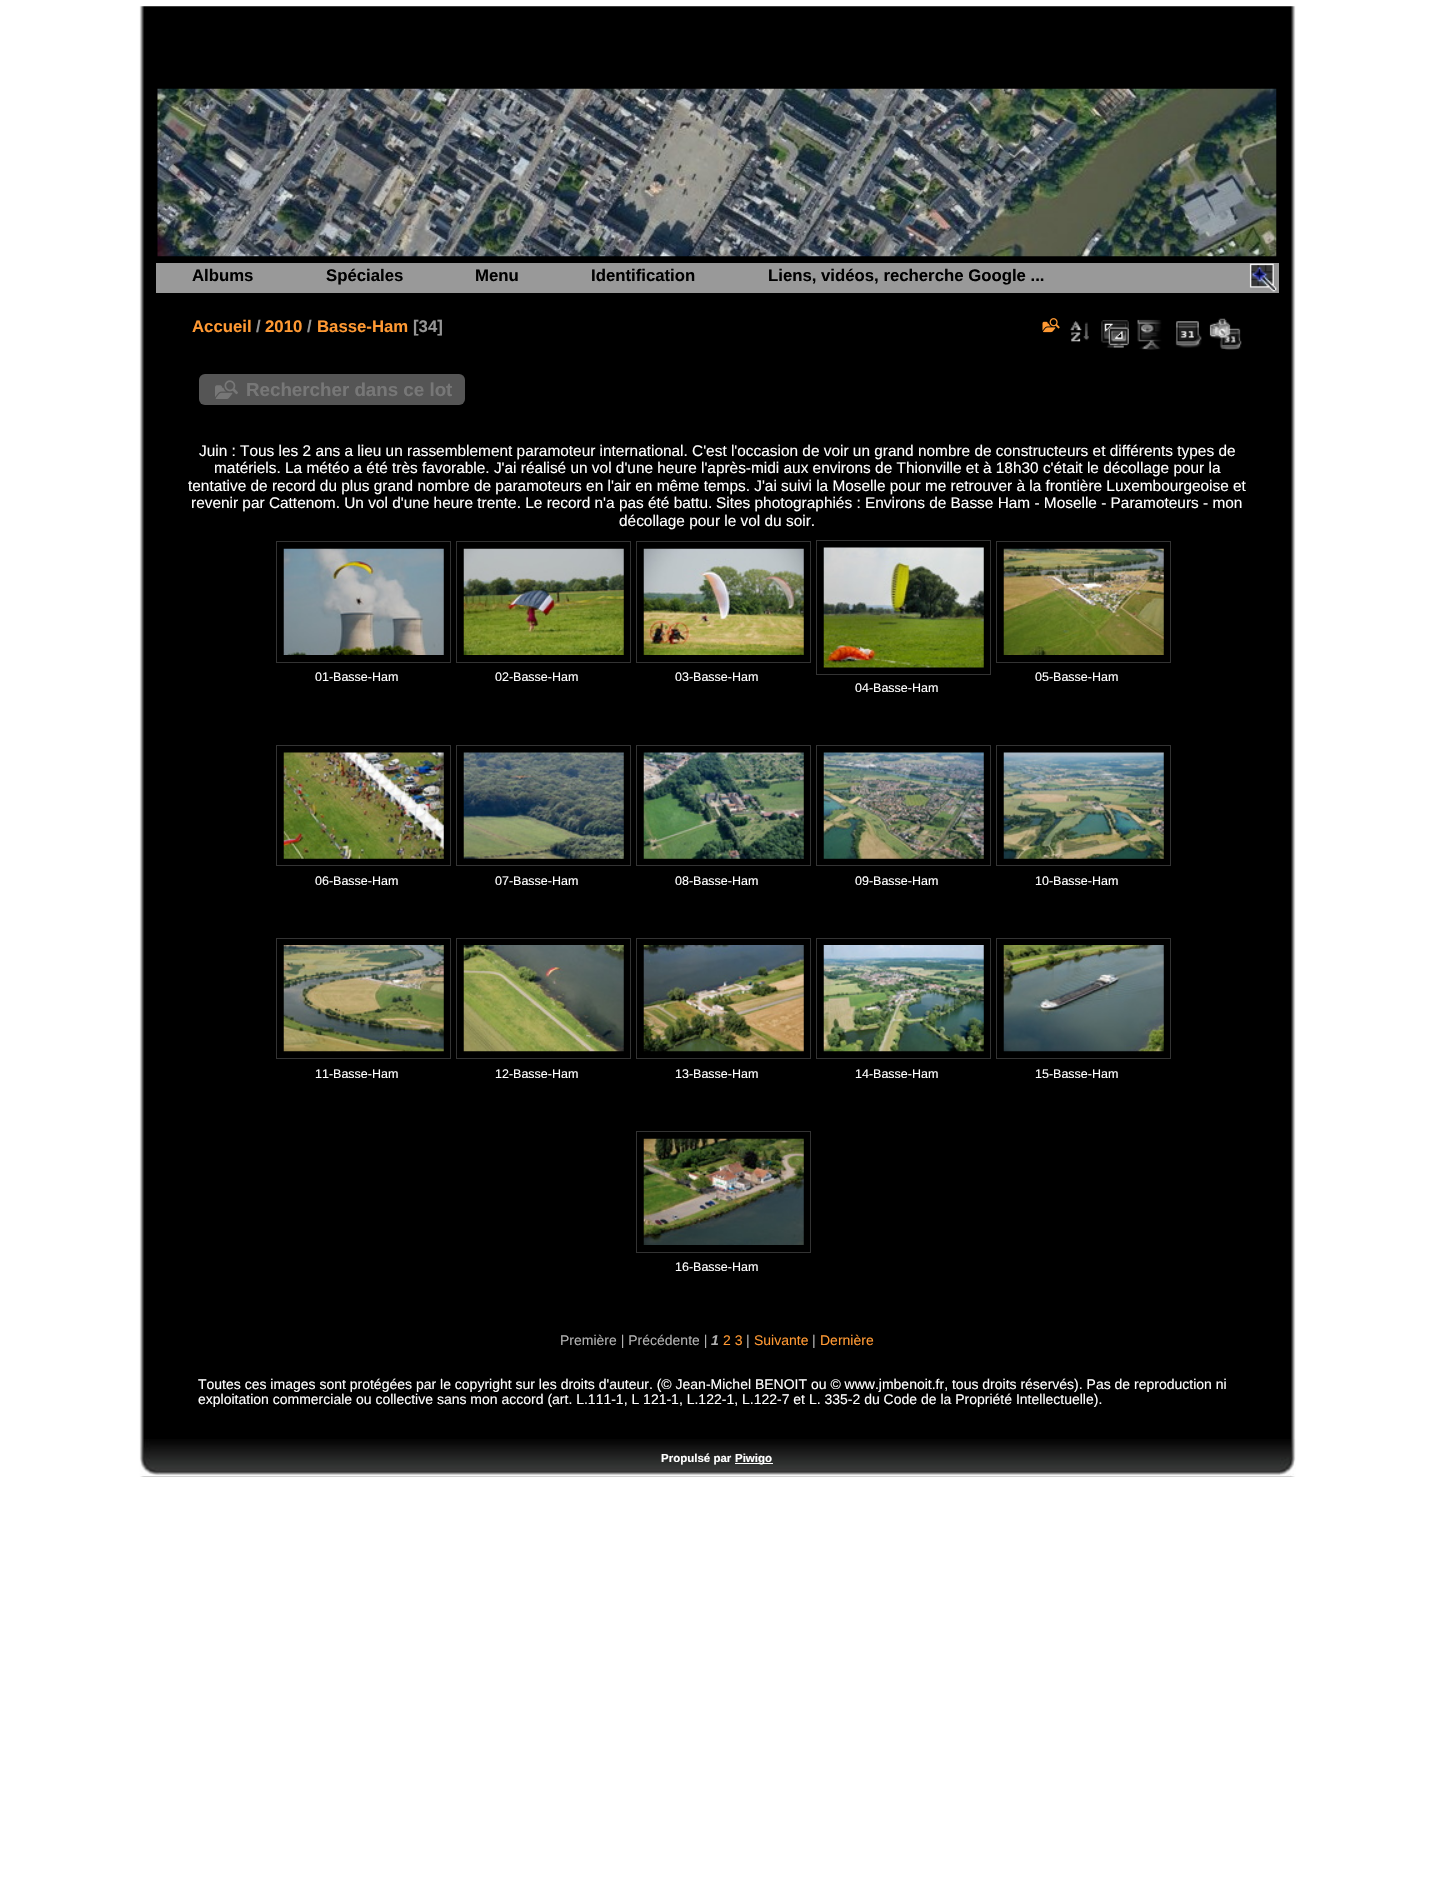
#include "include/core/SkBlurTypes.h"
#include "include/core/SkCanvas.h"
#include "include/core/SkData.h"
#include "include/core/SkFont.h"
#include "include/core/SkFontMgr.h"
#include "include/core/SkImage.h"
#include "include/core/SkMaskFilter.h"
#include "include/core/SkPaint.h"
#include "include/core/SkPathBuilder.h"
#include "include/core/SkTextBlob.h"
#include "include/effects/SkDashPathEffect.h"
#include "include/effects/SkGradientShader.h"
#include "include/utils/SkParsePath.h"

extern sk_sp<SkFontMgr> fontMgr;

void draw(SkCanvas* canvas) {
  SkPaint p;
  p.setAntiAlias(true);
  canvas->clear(SK_ColorWHITE);
  canvas->drawImageRect(SkImages::DeferredFromEncodedData(SkData::MakeFromFileName("images/1.png")), SkRect::MakeLTRB(139, 6, 1296, 1477), SkSamplingOptions());
  canvas->drawImageRect(SkImages::DeferredFromEncodedData(SkData::MakeFromFileName("images/2.png")), SkRect::MakeLTRB(157, 88, 1277, 257), SkSamplingOptions());
  p.setColor(SkColorSetRGB(153, 153, 153));
  canvas->drawRect(SkRect::MakeLTRB(156, 263, 1279, 293), p);
  canvas->drawImageRect(SkImages::DeferredFromEncodedData(SkData::MakeFromFileName("images/3.png")), SkRect::MakeLTRB(1249, 263, 1277, 292), SkSamplingOptions());
  canvas->drawImageRect(SkImages::DeferredFromEncodedData(SkData::MakeFromFileName("images/4.png")), SkRect::MakeLTRB(1042, 318, 1060, 333), SkSamplingOptions());
  canvas->drawImageRect(SkImages::DeferredFromEncodedData(SkData::MakeFromFileName("images/5.png")), SkRect::MakeLTRB(1070, 321, 1089, 342), SkSamplingOptions());
  canvas->drawImageRect(SkImages::DeferredFromEncodedData(SkData::MakeFromFileName("images/6.png")), SkRect::MakeLTRB(1101, 320, 1129, 348), SkSamplingOptions());
  canvas->drawImageRect(SkImages::DeferredFromEncodedData(SkData::MakeFromFileName("images/7.png")), SkRect::MakeLTRB(1137, 319, 1162, 350), SkSamplingOptions());
  canvas->drawImageRect(SkImages::DeferredFromEncodedData(SkData::MakeFromFileName("images/8.png")), SkRect::MakeLTRB(1175, 321, 1202, 348), SkSamplingOptions());
  canvas->drawImageRect(SkImages::DeferredFromEncodedData(SkData::MakeFromFileName("images/9.png")), SkRect::MakeLTRB(1209, 318, 1242, 350), SkSamplingOptions());
  p.setColor(SkColorSetRGB(85, 85, 85));
  canvas->drawRoundRect(SkRect::MakeLTRB(199, 374, 465, 405), 6, 6, p);
  canvas->drawImageRect(SkImages::DeferredFromEncodedData(SkData::MakeFromFileName("images/10.png")), SkRect::MakeLTRB(215, 380, 238, 399), SkSamplingOptions());
  p.setStyle(SkPaint::kStroke_Style);
  p.setStrokeWidth(1);
  p.setColor(SkColorSetRGB(51, 51, 51));
  canvas->drawRect(SkRect::MakeLTRB(276.5f, 541.5f, 450.5f, 662.5f), p);
  canvas->drawImageRect(SkImages::DeferredFromEncodedData(SkData::MakeFromFileName("images/11.png")), SkRect::MakeLTRB(283, 548, 444, 655), SkSamplingOptions());
  canvas->drawRect(SkRect::MakeLTRB(456.5f, 541.5f, 630.5f, 662.5f), p);
  canvas->drawImageRect(SkImages::DeferredFromEncodedData(SkData::MakeFromFileName("images/12.png")), SkRect::MakeLTRB(463, 548, 624, 655), SkSamplingOptions());
  canvas->drawRect(SkRect::MakeLTRB(636.5f, 541.5f, 810.5f, 662.5f), p);
  canvas->drawImageRect(SkImages::DeferredFromEncodedData(SkData::MakeFromFileName("images/13.png")), SkRect::MakeLTRB(643, 548, 804, 655), SkSamplingOptions());
  canvas->drawRect(SkRect::MakeLTRB(996.5f, 541.5f, 1170.5f, 662.5f), p);
  canvas->drawImageRect(SkImages::DeferredFromEncodedData(SkData::MakeFromFileName("images/14.png")), SkRect::MakeLTRB(1003, 548, 1164, 655), SkSamplingOptions());
  canvas->drawRect(SkRect::MakeLTRB(816.5f, 540.5f, 990.5f, 674.5f), p);
  canvas->drawImageRect(SkImages::DeferredFromEncodedData(SkData::MakeFromFileName("images/15.png")), SkRect::MakeLTRB(823, 547, 984, 668), SkSamplingOptions());
  canvas->drawRect(SkRect::MakeLTRB(276.5f, 745.5f, 450.5f, 865.5f), p);
  canvas->drawImageRect(SkImages::DeferredFromEncodedData(SkData::MakeFromFileName("images/16.png")), SkRect::MakeLTRB(283, 752, 444, 859), SkSamplingOptions());
  canvas->drawRect(SkRect::MakeLTRB(456.5f, 745.5f, 630.5f, 865.5f), p);
  canvas->drawImageRect(SkImages::DeferredFromEncodedData(SkData::MakeFromFileName("images/17.png")), SkRect::MakeLTRB(463, 752, 624, 859), SkSamplingOptions());
  canvas->drawRect(SkRect::MakeLTRB(636.5f, 745.5f, 810.5f, 865.5f), p);
  canvas->drawImageRect(SkImages::DeferredFromEncodedData(SkData::MakeFromFileName("images/18.png")), SkRect::MakeLTRB(643, 752, 804, 859), SkSamplingOptions());
  canvas->drawRect(SkRect::MakeLTRB(816.5f, 745.5f, 990.5f, 865.5f), p);
  canvas->drawImageRect(SkImages::DeferredFromEncodedData(SkData::MakeFromFileName("images/19.png")), SkRect::MakeLTRB(823, 752, 984, 859), SkSamplingOptions());
  canvas->drawRect(SkRect::MakeLTRB(996.5f, 745.5f, 1170.5f, 865.5f), p);
  canvas->drawImageRect(SkImages::DeferredFromEncodedData(SkData::MakeFromFileName("images/20.png")), SkRect::MakeLTRB(1003, 752, 1164, 859), SkSamplingOptions());
  canvas->drawRect(SkRect::MakeLTRB(276.5f, 938.5f, 450.5f, 1058.5f), p);
  canvas->drawImageRect(SkImages::DeferredFromEncodedData(SkData::MakeFromFileName("images/21.png")), SkRect::MakeLTRB(283, 945, 444, 1052), SkSamplingOptions());
  canvas->drawRect(SkRect::MakeLTRB(456.5f, 938.5f, 630.5f, 1058.5f), p);
  canvas->drawImageRect(SkImages::DeferredFromEncodedData(SkData::MakeFromFileName("images/22.png")), SkRect::MakeLTRB(463, 945, 624, 1052), SkSamplingOptions());
  canvas->drawRect(SkRect::MakeLTRB(636.5f, 938.5f, 810.5f, 1058.5f), p);
  canvas->drawImageRect(SkImages::DeferredFromEncodedData(SkData::MakeFromFileName("images/23.png")), SkRect::MakeLTRB(643, 945, 804, 1052), SkSamplingOptions());
  canvas->drawRect(SkRect::MakeLTRB(816.5f, 938.5f, 990.5f, 1058.5f), p);
  canvas->drawImageRect(SkImages::DeferredFromEncodedData(SkData::MakeFromFileName("images/24.png")), SkRect::MakeLTRB(823, 945, 984, 1052), SkSamplingOptions());
  canvas->drawRect(SkRect::MakeLTRB(996.5f, 938.5f, 1170.5f, 1058.5f), p);
  canvas->drawImageRect(SkImages::DeferredFromEncodedData(SkData::MakeFromFileName("images/25.png")), SkRect::MakeLTRB(1003, 945, 1164, 1052), SkSamplingOptions());
  canvas->drawRect(SkRect::MakeLTRB(636.5f, 1131.5f, 810.5f, 1252.5f), p);
  canvas->drawImageRect(SkImages::DeferredFromEncodedData(SkData::MakeFromFileName("images/26.png")), SkRect::MakeLTRB(643, 1138, 804, 1245), SkSamplingOptions());
  canvas->drawImageRect(SkImages::DeferredFromEncodedData(SkData::MakeFromFileName("images/27.png")), SkRect::MakeLTRB(139, 1439, 1296, 1477), SkSamplingOptions());
  p.setStyle(SkPaint::kFill_Style);
  p.setColor(SK_ColorWHITE);
  canvas->drawRect(SkRect::MakeLTRB(735, 1463, 773, 1464), p);
  SkFont font1(fontMgr->matchFamilyStyle("Liberation Sans", SkFontStyle::Bold()), 16.75f);
  font1.setSubpixel(true);
  p.setColor(SK_ColorBLACK);
  canvas->drawString("Albums", 192, 281, font1, p);
  canvas->drawString("Spéciales", 326, 281, font1, p);
  canvas->drawString("Menu", 475, 281, font1, p);
  canvas->drawString("Identification", 591, 281, font1, p);
  canvas->drawString("Liens, vidéos, recherche Google ...", 768, 281, font1, p);
  p.setColor(SkColorSetRGB(255, 153, 51));
  canvas->drawString("Accueil", 192, 332, font1, p);
  p.setColor(SkColorSetRGB(150, 150, 150));
  canvas->drawString("/", 256, 332, font1, p);
  p.setColor(SkColorSetRGB(255, 153, 51));
  canvas->drawString("2010", 265, 332, font1, p);
  p.setColor(SkColorSetRGB(150, 150, 150));
  canvas->drawString("/", 307, 332, font1, p);
  p.setColor(SkColorSetRGB(255, 153, 51));
  canvas->drawString("Basse-Ham", 317, 332, font1, p);
  p.setColor(SkColorSetRGB(150, 150, 150));
  canvas->drawString("[34]", 413, 332, font1, p);
  SkFont font2(fontMgr->matchFamilyStyle("Liberation Sans", SkFontStyle::Bold()), 18.75f);
  font2.setSubpixel(true);
  p.setColor(SkColorSetRGB(119, 119, 119));
  canvas->drawString("Rechercher dans ce lot", 246, 396, font2, p);
  SkFont font3(fontMgr->matchFamilyStyle("Liberation Sans", SkFontStyle::Normal()), 15.4f);
  font3.setSubpixel(true);
  p.setColor(SK_ColorWHITE);
  canvas->drawString("Juin : Tous les 2 ans a lieu un rassemblement paramoteur international. C'est l'occasion de voir un grand nombre de constructeurs et différents types de", 199, 456, font3, p);
  canvas->drawString("matériels. La météo a été très favorable. J'ai réalisé un vol d'une heure l'après-midi aux environs de Thionville et à 18h30 c'était le décollage pour la", 214, 473, font3, p);
  canvas->drawString("tentative de record du plus grand nombre de paramoteurs en l'air en même temps. J'ai suivi la Moselle pour me retrouver à la frontière Luxembourgeoise et", 188, 491, font3, p);
  canvas->drawString("revenir par Cattenom. Un vol d'une heure trente. Le record n'a pas été battu.", 191, 508, font3, p);
  canvas->drawString("Sites photographiés : Environs de Basse Ham - Moselle - Paramoteurs - mon", 716, 508, font3, p);
  canvas->drawString("décollage pour le vol du soir.", 619, 526, font3, p);
  SkFont font4(fontMgr->matchFamilyStyle("Liberation Sans", SkFontStyle::Normal()), 12.5f);
  font4.setSubpixel(true);
  canvas->drawString("01-Basse-Ham", 315, 681, font4, p);
  canvas->drawString("02-Basse-Ham", 495, 681, font4, p);
  canvas->drawString("03-Basse-Ham", 675, 681, font4, p);
  canvas->drawString("05-Basse-Ham", 1035, 681, font4, p);
  canvas->drawString("04-Basse-Ham", 855, 692, font4, p);
  canvas->drawString("06-Basse-Ham", 315, 885, font4, p);
  canvas->drawString("07-Basse-Ham", 495, 885, font4, p);
  canvas->drawString("08-Basse-Ham", 675, 885, font4, p);
  canvas->drawString("09-Basse-Ham", 855, 885, font4, p);
  canvas->drawString("10-Basse-Ham", 1035, 885, font4, p);
  canvas->drawString("11-Basse-Ham", 315, 1078, font4, p);
  canvas->drawString("12-Basse-Ham", 495, 1078, font4, p);
  canvas->drawString("13-Basse-Ham", 675, 1078, font4, p);
  canvas->drawString("14-Basse-Ham", 855, 1078, font4, p);
  canvas->drawString("15-Basse-Ham", 1035, 1078, font4, p);
  canvas->drawString("16-Basse-Ham", 675, 1271, font4, p);
  SkFont font5(fontMgr->matchFamilyStyle("Liberation Sans", SkFontStyle::Normal()), 14);
  font5.setSubpixel(true);
  p.setColor(SkColorSetRGB(176, 176, 176));
  canvas->drawString("Première | Précédente |", 560, 1345, font5, p);
  SkFont font6(fontMgr->matchFamilyStyle("Liberation Sans", SkFontStyle::BoldItalic()), 14);
  font6.setSubpixel(true);
  canvas->drawString("1", 711, 1345, font6, p);
  p.setColor(SkColorSetRGB(255, 153, 51));
  canvas->drawString("2 3", 723, 1345, font5, p);
  p.setColor(SkColorSetRGB(176, 176, 176));
  canvas->drawString("|", 746, 1345, font5, p);
  p.setColor(SkColorSetRGB(255, 153, 51));
  canvas->drawString("Suivante", 754, 1345, font5, p);
  p.setColor(SkColorSetRGB(176, 176, 176));
  canvas->drawString("|", 812, 1345, font5, p);
  p.setColor(SkColorSetRGB(255, 153, 51));
  canvas->drawString("Dernière", 820, 1345, font5, p);
  p.setColor(SK_ColorWHITE);
  canvas->drawString("Toutes ces images sont protégées par le copyright sur les droits d'auteur. (© Jean-Michel BENOIT ou © www.jmbenoit.fr, tous droits réservés). Pas de reproduction ni", 198, 1389, font5, p);
  canvas->drawString("exploitation commerciale ou collective sans mon accord (art. L.111-1, L 121-1, L.122-1, L.122-7 et L. 335-2 du Code de la Propriété Intellectuelle).", 198, 1404, font5, p);
  SkFont font7(fontMgr->matchFamilyStyle("Liberation Sans", SkFontStyle::Bold()), 11.5f);
  font7.setSubpixel(true);
  canvas->drawString("Propulsé par", 661, 1462, font7, p);
  canvas->drawString("Piwigo", 735, 1462, font7, p);
}
